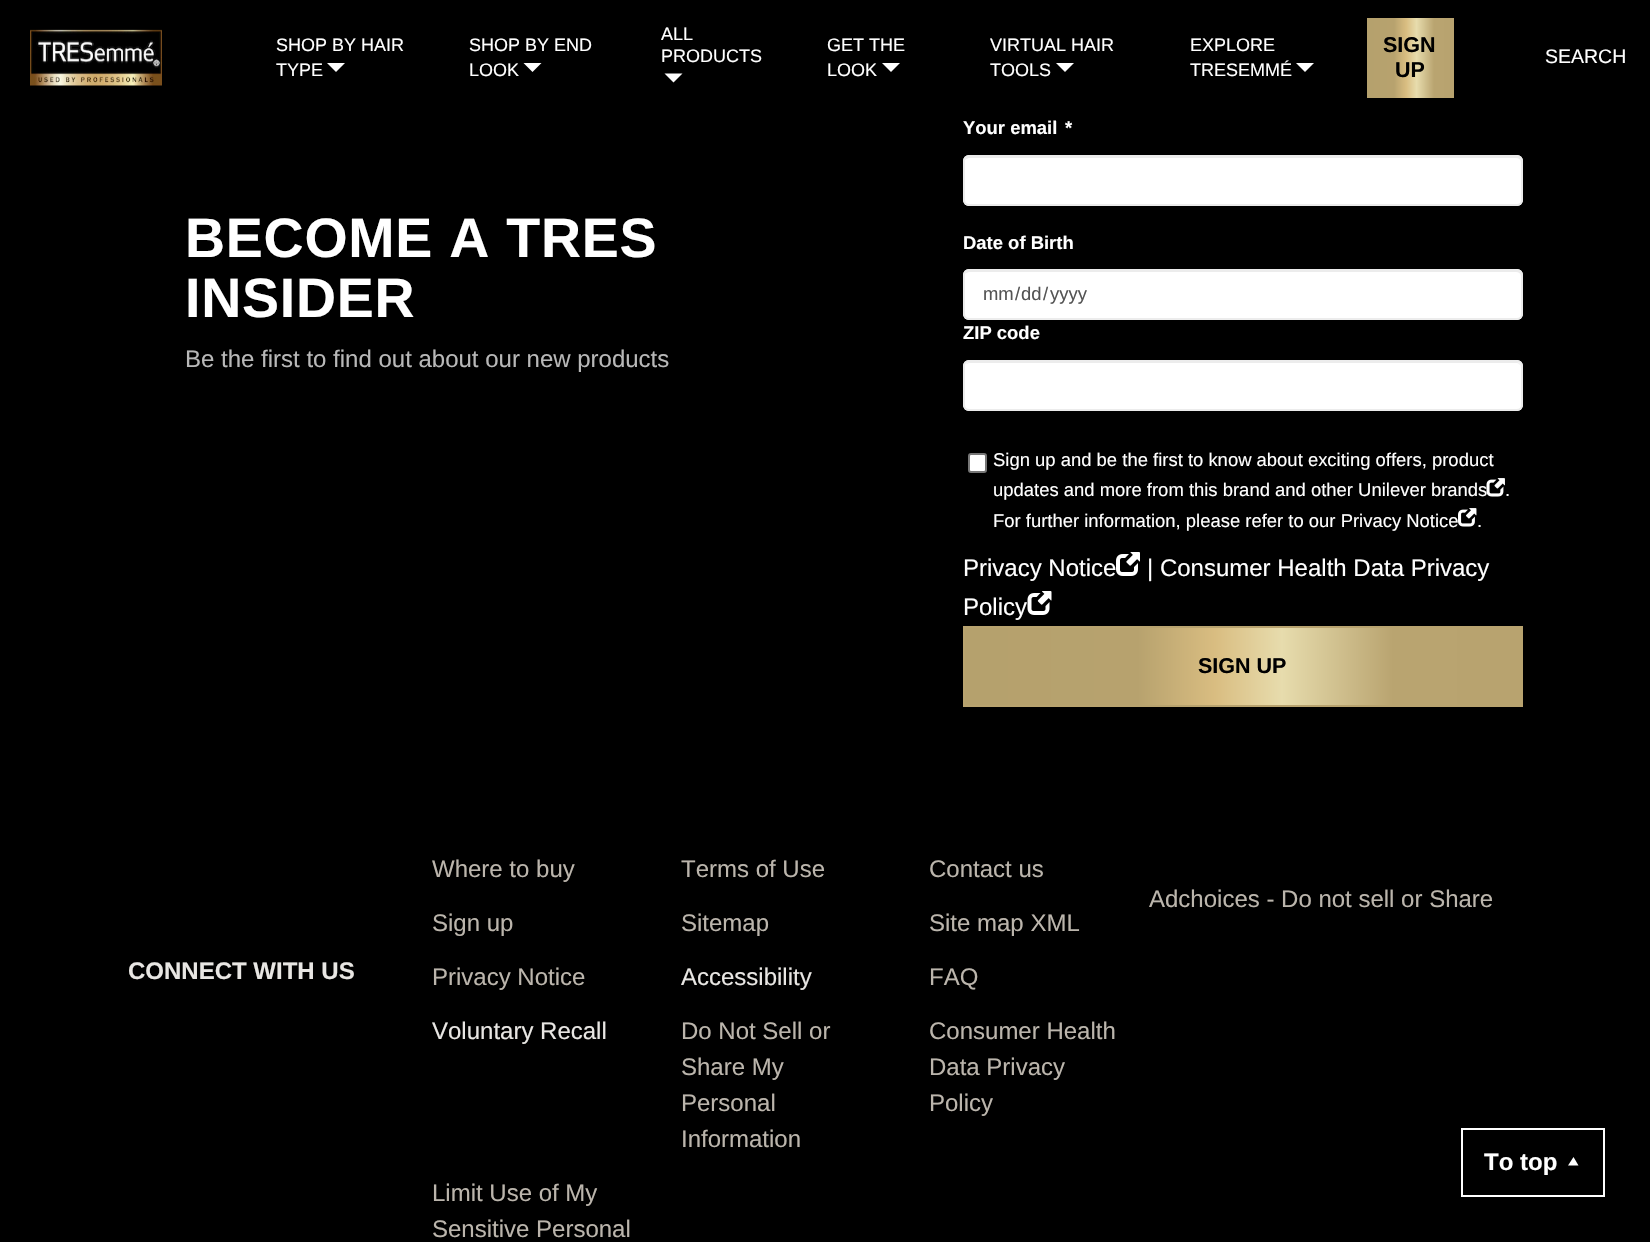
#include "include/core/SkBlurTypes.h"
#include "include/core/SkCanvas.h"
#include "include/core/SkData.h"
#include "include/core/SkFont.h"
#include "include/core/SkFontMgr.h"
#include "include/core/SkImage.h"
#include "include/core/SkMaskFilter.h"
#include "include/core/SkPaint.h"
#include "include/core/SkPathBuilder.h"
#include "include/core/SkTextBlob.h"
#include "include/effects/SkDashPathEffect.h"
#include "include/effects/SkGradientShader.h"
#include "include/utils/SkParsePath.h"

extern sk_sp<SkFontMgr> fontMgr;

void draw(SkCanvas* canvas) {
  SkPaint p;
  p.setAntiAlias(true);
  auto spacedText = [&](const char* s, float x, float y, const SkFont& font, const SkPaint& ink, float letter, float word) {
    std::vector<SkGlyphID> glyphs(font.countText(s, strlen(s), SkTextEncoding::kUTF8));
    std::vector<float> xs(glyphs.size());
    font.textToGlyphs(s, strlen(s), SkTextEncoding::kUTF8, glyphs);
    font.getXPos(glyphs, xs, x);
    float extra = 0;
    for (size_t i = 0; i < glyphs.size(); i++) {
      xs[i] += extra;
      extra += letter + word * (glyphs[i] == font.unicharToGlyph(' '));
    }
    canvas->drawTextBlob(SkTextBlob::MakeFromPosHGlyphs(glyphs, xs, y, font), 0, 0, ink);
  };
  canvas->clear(SK_ColorBLACK);
  canvas->drawImageRect(SkImages::DeferredFromEncodedData(SkData::MakeFromFileName("images/1.png")), SkRect::MakeLTRB(30, 29, 162, 86), SkSamplingOptions());
  p.setColor(SK_ColorWHITE);
  canvas->drawPath(SkPathBuilder().moveTo(327, 63).lineTo(345, 63).lineTo(336, 72).close().detach(), p);
  canvas->drawPath(SkPathBuilder().moveTo(523.5f, 63).lineTo(541.5f, 63).lineTo(532.5f, 72).close().detach(), p);
  canvas->drawPath(SkPathBuilder().moveTo(664.5f, 73.5f).lineTo(682.5f, 73.5f).lineTo(673.5f, 82.5f).close().detach(), p);
  canvas->drawPath(SkPathBuilder().moveTo(882, 63).lineTo(900, 63).lineTo(891, 72).close().detach(), p);
  canvas->drawPath(SkPathBuilder().moveTo(1056, 63).lineTo(1074, 63).lineTo(1065, 72).close().detach(), p);
  canvas->drawPath(SkPathBuilder().moveTo(1296, 63).lineTo(1314, 63).lineTo(1305, 72).close().detach(), p);
  {
    const SkColor colors[] = {SkColorSetRGB(181, 161, 109), SkColorSetRGB(183, 162, 110), SkColorSetRGB(217, 189, 129), SkColorSetRGB(231, 220, 173), SkColorSetRGB(185, 164, 112), SkColorSetRGB(184, 163, 111)};
    const float stops[] = {0, 0.31f, 0.45f, 0.57f, 0.77f, 1};
    const SkPoint ends[] = {{1367, 58}, {1454, 58}};
    p.setShader(SkGradientShader::MakeLinear(ends, colors, stops, 6, SkTileMode::kClamp));
    p.setAlpha(255);
  }
  canvas->drawRect(SkRect::MakeLTRB(1367, 18, 1454, 98), p);
  p.setShader(nullptr);
  p.setColor(SK_ColorWHITE);
  canvas->drawRoundRect(SkRect::MakeLTRB(963, 155, 1523, 206), 6, 6, p);
  p.setColor(SkColorSetRGB(236, 236, 236));
  canvas->drawPath(SkPathBuilder().moveTo(969, 158).lineTo(1516, 158).cubicTo(1519, 158, 1521, 160, 1521, 162).lineTo(1521, 161).cubicTo(1521, 158, 1519, 156, 1516, 156).lineTo(970, 156).cubicTo(968, 156, 966, 158, 965, 160).cubicTo(966, 159, 968, 158, 969, 158).close().detach(), p);
  p.setStyle(SkPaint::kStroke_Style);
  p.setStrokeWidth(2);
  canvas->drawRoundRect(SkRect::MakeLTRB(964, 156, 1522, 205), 5, 5, p);
  p.setStyle(SkPaint::kFill_Style);
  p.setColor(SK_ColorWHITE);
  canvas->drawRoundRect(SkRect::MakeLTRB(963, 269, 1523, 320), 6, 6, p);
  p.setColor(SkColorSetRGB(236, 236, 236));
  canvas->drawPath(SkPathBuilder().moveTo(969, 272).lineTo(1516, 272).cubicTo(1519, 272, 1521, 274, 1521, 276).lineTo(1521, 275).cubicTo(1521, 272, 1519, 270, 1516, 270).lineTo(970, 270).cubicTo(968, 270, 966, 272, 965, 274).cubicTo(966, 273, 968, 272, 969, 272).close().detach(), p);
  p.setStyle(SkPaint::kStroke_Style);
  canvas->drawRoundRect(SkRect::MakeLTRB(964, 270, 1522, 319), 5, 5, p);
  p.setStyle(SkPaint::kFill_Style);
  p.setColor(SK_ColorWHITE);
  canvas->drawRoundRect(SkRect::MakeLTRB(963, 360, 1523, 411), 6, 6, p);
  p.setColor(SkColorSetRGB(236, 236, 236));
  canvas->drawPath(SkPathBuilder().moveTo(969, 363).lineTo(1516, 363).cubicTo(1519, 363, 1521, 365, 1521, 368).lineTo(1521, 367).cubicTo(1521, 364, 1519, 362, 1516, 362).lineTo(970, 362).cubicTo(968, 362, 967, 363, 966, 364).close().detach(), p);
  p.setStyle(SkPaint::kStroke_Style);
  canvas->drawRoundRect(SkRect::MakeLTRB(964, 361, 1522, 410), 5, 5, p);
  p.setStyle(SkPaint::kFill_Style);
  p.setColor(SK_ColorWHITE);
  canvas->drawRoundRect(SkRect::MakeLTRB(969, 454, 986, 472), 2, 2, p);
  p.setStyle(SkPaint::kStroke_Style);
  p.setColor(SkColorSetRGB(118, 118, 118));
  canvas->drawRoundRect(SkRect::MakeLTRB(969, 454, 986, 472), 2, 2, p);
  canvas->drawImageRect(SkImages::DeferredFromEncodedData(SkData::MakeFromFileName("images/3.png")), SkRect::MakeLTRB(1458, 508, 1477, 527), SkSamplingOptions());
  canvas->drawImageRect(SkImages::DeferredFromEncodedData(SkData::MakeFromFileName("images/4.png")), SkRect::MakeLTRB(1116, 552, 1140, 576), SkSamplingOptions());
  canvas->drawImageRect(SkImages::DeferredFromEncodedData(SkData::MakeFromFileName("images/5.png")), SkRect::MakeLTRB(1027, 591, 1052, 615), SkSamplingOptions());
  p.setStyle(SkPaint::kFill_Style);
  {
    const SkColor colors[] = {SkColorSetRGB(181, 161, 109), SkColorSetRGB(183, 162, 110), SkColorSetRGB(217, 189, 129), SkColorSetRGB(231, 220, 173), SkColorSetRGB(185, 164, 112), SkColorSetRGB(184, 163, 111)};
    const float stops[] = {0, 0.31f, 0.45f, 0.57f, 0.77f, 1};
    const SkPoint ends[] = {{965, 666}, {1521, 666}};
    p.setShader(SkGradientShader::MakeLinear(ends, colors, stops, 6, SkTileMode::kClamp));
    p.setAlpha(255);
  }
  canvas->drawRect(SkRect::MakeLTRB(965, 628, 1521, 705), p);
  p.setStyle(SkPaint::kStroke_Style);
  p.setShader(nullptr);
  p.setColor(SkColorSetRGB(184, 163, 111));
  canvas->drawRect(SkRect::MakeLTRB(964, 627, 1522, 706), p);
  p.setColor(SK_ColorWHITE);
  canvas->drawRect(SkRect::MakeLTRB(1462, 1129, 1604, 1196), p);
  p.setStyle(SkPaint::kFill_Style);
  canvas->drawPath(SkPathBuilder().moveTo(1568, 1165.5f).lineTo(1573.5f, 1157).lineTo(1578.5f, 1165.5f).close().detach(), p);
  SkFont font1(fontMgr->matchFamilyStyle("Liberation Sans", SkFontStyle::Normal()), 18);
  font1.setSubpixel(true);
  canvas->drawString("SHOP BY HAIR", 276, 51, font1, p);
  canvas->drawString("TYPE", 276, 76, font1, p);
  canvas->drawString("SHOP BY END", 469, 51, font1, p);
  canvas->drawString("LOOK", 469, 76, font1, p);
  canvas->drawString("ALL", 661, 40, font1, p);
  canvas->drawString("PRODUCTS", 661, 62, font1, p);
  canvas->drawString("GET THE", 827, 51, font1, p);
  canvas->drawString("LOOK", 827, 76, font1, p);
  canvas->drawString("VIRTUAL HAIR", 990, 51, font1, p);
  canvas->drawString("TOOLS", 990, 76, font1, p);
  canvas->drawString("EXPLORE", 1190, 51, font1, p);
  canvas->drawString("TRESEMMÉ", 1190, 76, font1, p);
  SkFont font2(fontMgr->matchFamilyStyle("Liberation Sans", SkFontStyle::Bold()), 21.5f);
  font2.setSubpixel(true);
  p.setColor(SK_ColorBLACK);
  canvas->drawString("SIGN", 1383, 52, font2, p);
  canvas->drawString("UP", 1395, 77, font2, p);
  SkFont font3(fontMgr->matchFamilyStyle("Liberation Sans", SkFontStyle::Normal()), 19.5f);
  font3.setSubpixel(true);
  p.setColor(SK_ColorWHITE);
  canvas->drawString("SEARCH", 1545, 63, font3, p);
  SkFont font4(fontMgr->matchFamilyStyle("Liberation Sans", SkFontStyle::Bold()), 55.5f);
  font4.setSubpixel(true);
  spacedText("BECOME A TRES", 185, 257, font4, p, 0.75f, 0);
  spacedText("INSIDER", 185, 317, font4, p, 0.75f, 0);
  SkFont font5(fontMgr->matchFamilyStyle("Liberation Sans", SkFontStyle::Normal()), 24);
  font5.setSubpixel(true);
  p.setColor(SkColorSetRGB(184, 184, 184));
  canvas->drawString("Be the first to find out about our new products", 185, 367, font5, p);
  SkFont font6(fontMgr->matchFamilyStyle("Liberation Sans", SkFontStyle::Bold()), 18.45f);
  font6.setSubpixel(true);
  p.setColor(SK_ColorWHITE);
  canvas->drawString("Your email", 963, 134, font6, p);
  canvas->drawString("*", 1065, 134, font6, p);
  canvas->drawString("Date of Birth", 963, 249, font6, p);
  SkFont font7(fontMgr->matchFamilyStyle("Liberation Sans", SkFontStyle::Normal()), 18.45f);
  font7.setSubpixel(true);
  p.setColor(SkColorSetRGB(84, 84, 84));
  canvas->drawString("mm", 983, 300, font7, p);
  canvas->drawString("/", 1015, 300, font7, p);
  canvas->drawString("dd", 1021, 300, font7, p);
  canvas->drawString("/", 1043, 300, font7, p);
  canvas->drawString("yyyy", 1050, 300, font7, p);
  p.setColor(SK_ColorWHITE);
  canvas->drawString("ZIP code", 963, 339, font6, p);
  canvas->drawString("Sign up and be the first to know about exciting offers, product", 993, 466, font7, p);
  canvas->drawString("updates and more from this brand and other Unilever brands", 993, 496, font7, p);
  canvas->drawImageRect(SkImages::DeferredFromEncodedData(SkData::MakeFromFileName("images/2.png")), SkRect::MakeLTRB(1486, 478, 1505, 497), SkSamplingOptions());
  canvas->drawString(".", 1505, 496, font7, p);
  canvas->drawString("For further information, please refer to our Privacy Notice", 993, 527, font7, p);
  canvas->drawString(".", 1477, 527, font7, p);
  canvas->drawString("Privacy Notice", 963, 576, font5, p);
  canvas->drawString("| Consumer Health Data Privacy", 1147, 576, font5, p);
  canvas->drawString("Policy", 963, 615, font5, p);
  p.setColor(SK_ColorBLACK);
  canvas->drawString("SIGN UP", 1198, 673, font2, p);
  p.setColor(SkColorSetRGB(187, 181, 172));
  canvas->drawString("Where to buy", 432, 877, font5, p);
  canvas->drawString("Terms of Use", 681, 877, font5, p);
  canvas->drawString("Contact us", 929, 877, font5, p);
  canvas->drawString("Sign up", 432, 931, font5, p);
  canvas->drawString("Sitemap", 681, 931, font5, p);
  canvas->drawString("Site map XML", 929, 931, font5, p);
  canvas->drawString("Privacy Notice", 432, 985, font5, p);
  p.setColor(SkColorSetRGB(232, 230, 227));
  canvas->drawString("Accessibility", 681, 985, font5, p);
  p.setColor(SkColorSetRGB(187, 181, 172));
  canvas->drawString("FAQ", 929, 985, font5, p);
  p.setColor(SkColorSetRGB(232, 230, 227));
  canvas->drawString("Voluntary Recall", 432, 1039, font5, p);
  p.setColor(SkColorSetRGB(187, 181, 172));
  canvas->drawString("Do Not Sell or", 681, 1039, font5, p);
  canvas->drawString("Share My", 681, 1075, font5, p);
  canvas->drawString("Personal", 681, 1111, font5, p);
  canvas->drawString("Information", 681, 1147, font5, p);
  canvas->drawString("Consumer Health", 929, 1039, font5, p);
  canvas->drawString("Data Privacy", 929, 1075, font5, p);
  canvas->drawString("Policy", 929, 1111, font5, p);
  canvas->drawString("Limit Use of My", 432, 1201, font5, p);
  canvas->drawString("Sensitive Personal", 432, 1237, font5, p);
  canvas->drawString("Adchoices - Do not sell or Share", 1149, 907, font5, p);
  SkFont font8(fontMgr->matchFamilyStyle("Liberation Sans", SkFontStyle::Bold()), 24);
  font8.setSubpixel(true);
  p.setColor(SkColorSetRGB(232, 230, 227));
  canvas->drawString("CONNECT WITH US", 128, 979, font8, p);
  p.setColor(SK_ColorWHITE);
  canvas->drawString("To top", 1484, 1170, font8, p);
}
